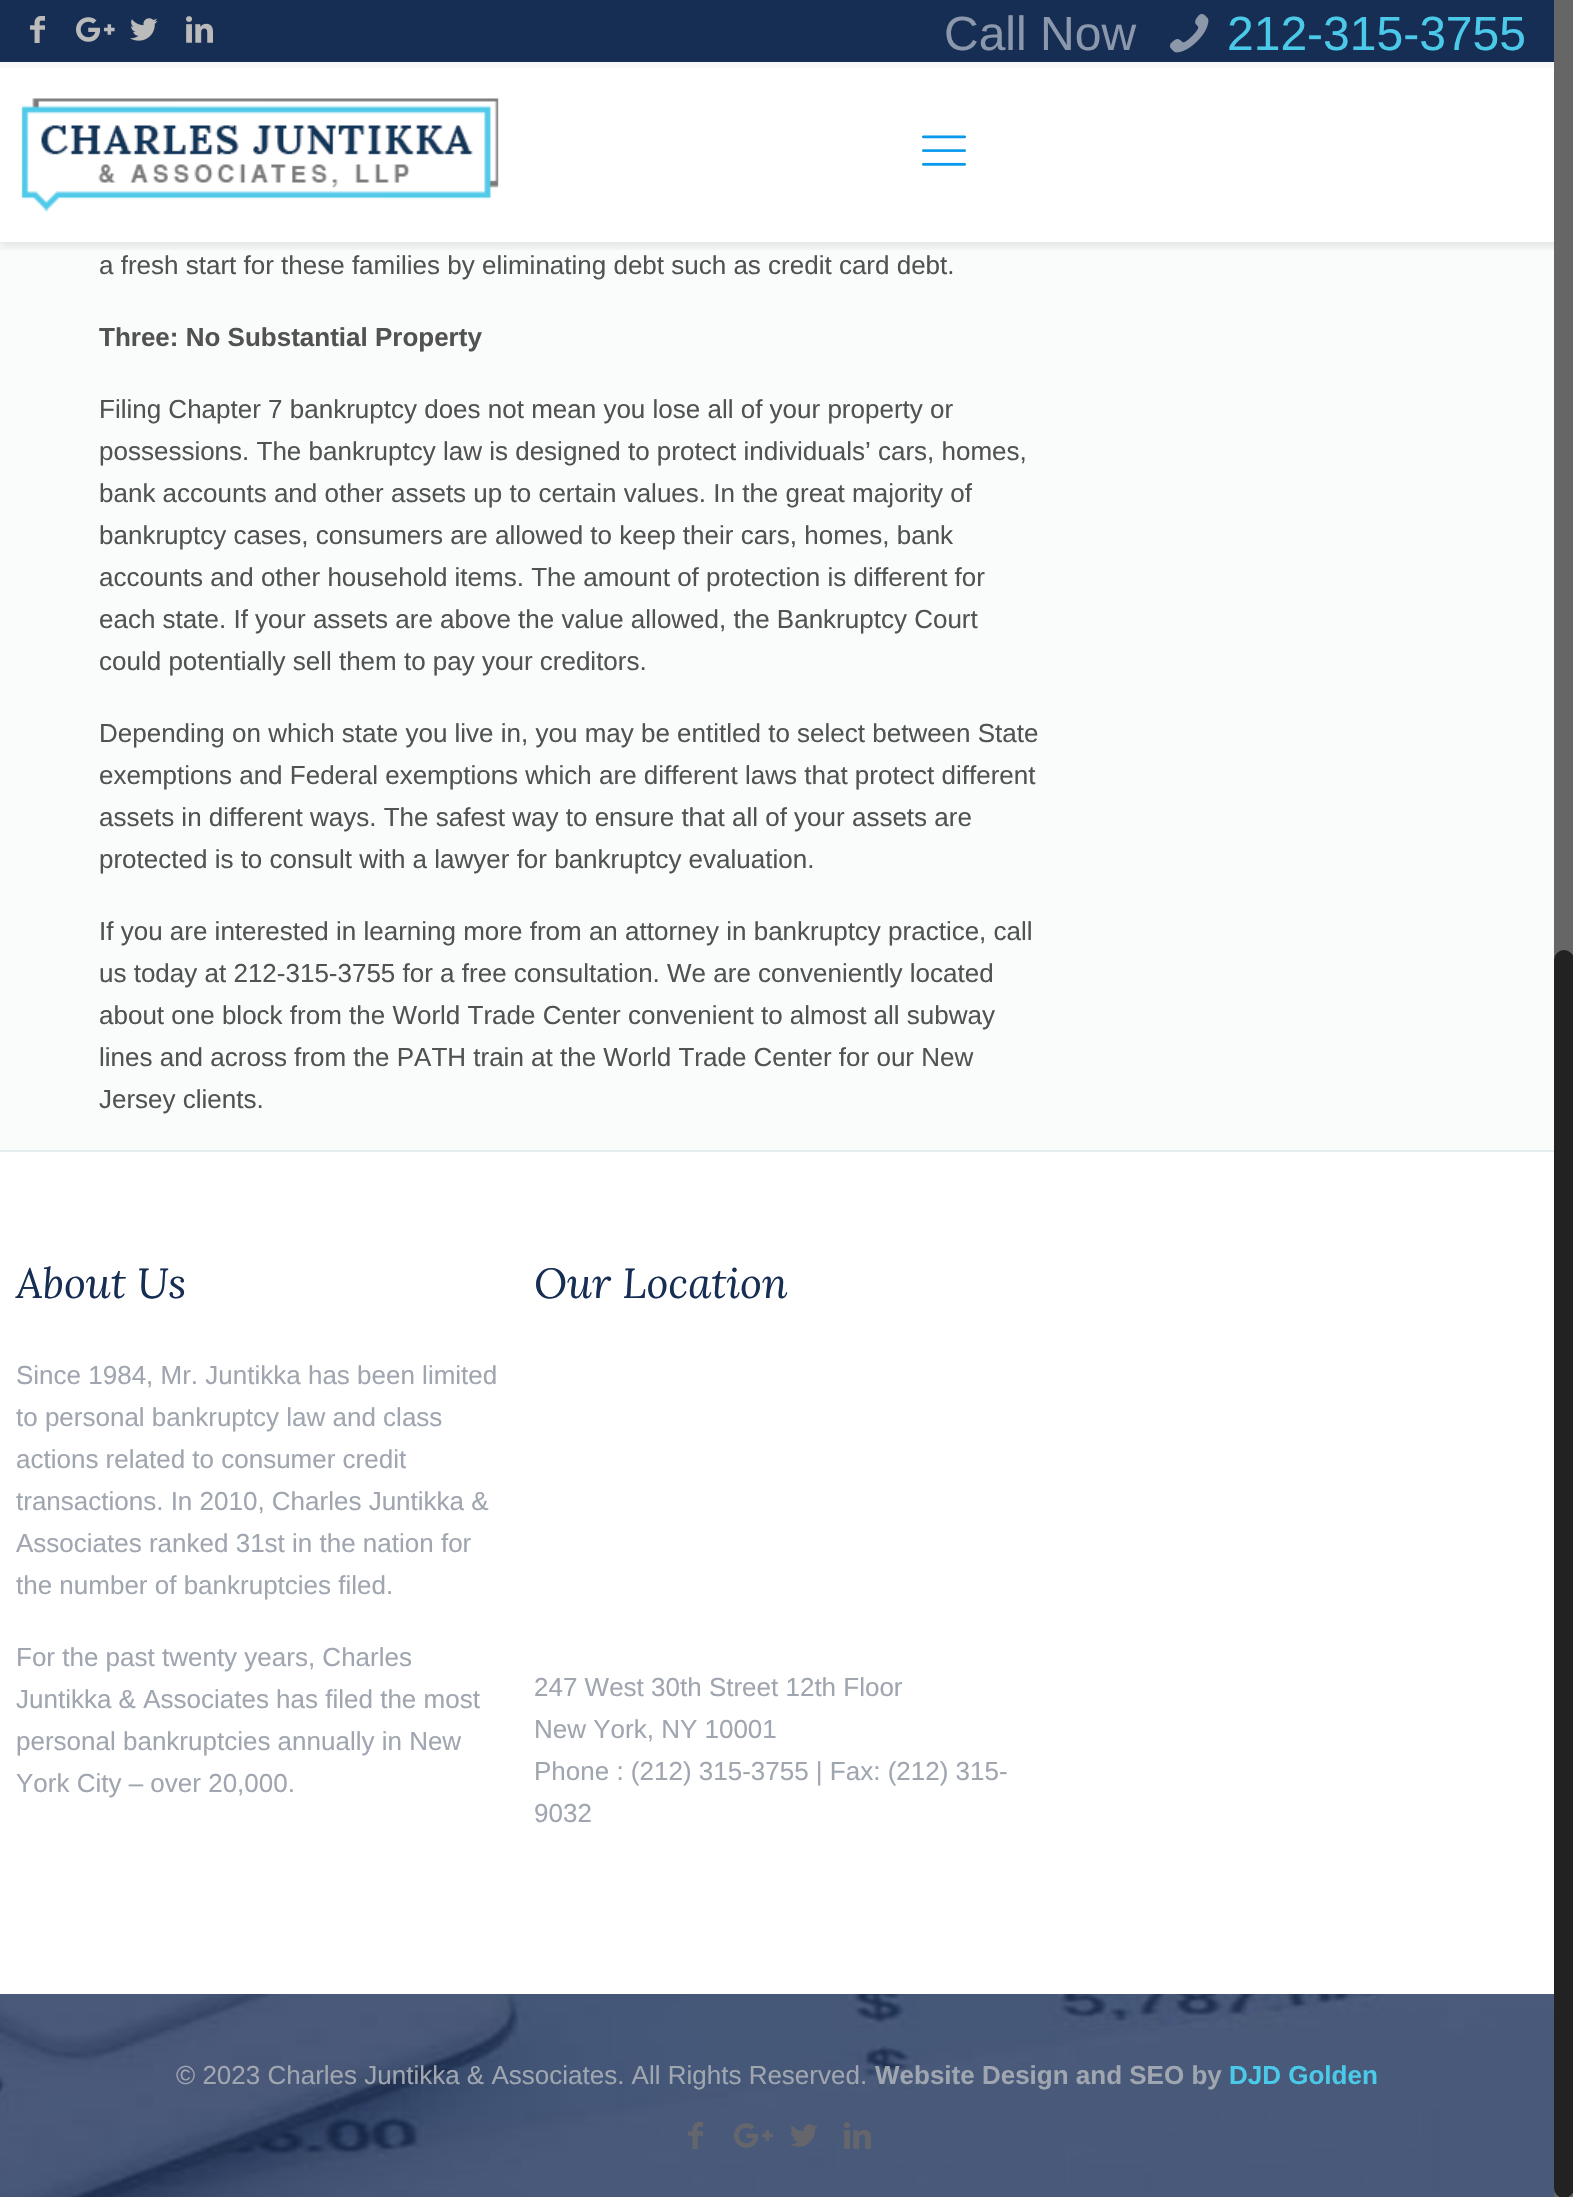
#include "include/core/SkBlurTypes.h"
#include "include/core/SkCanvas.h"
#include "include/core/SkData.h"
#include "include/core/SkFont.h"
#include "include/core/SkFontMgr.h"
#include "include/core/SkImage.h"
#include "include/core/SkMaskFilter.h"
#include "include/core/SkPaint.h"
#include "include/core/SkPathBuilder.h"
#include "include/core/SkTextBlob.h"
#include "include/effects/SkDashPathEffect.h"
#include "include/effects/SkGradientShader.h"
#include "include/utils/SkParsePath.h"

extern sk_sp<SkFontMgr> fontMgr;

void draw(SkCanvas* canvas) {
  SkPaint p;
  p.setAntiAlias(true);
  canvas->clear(SkColorSetRGB(250, 252, 252));
  p.setColor(SkColorSetRGB(23, 46, 84));
  canvas->drawRect(SkRect::MakeLTRB(0, 0, 1554, 68), p);
  canvas->drawImageRect(SkImages::DeferredFromEncodedData(SkData::MakeFromFileName("images/1.png")), SkRect::MakeLTRB(30, 16, 45, 43), SkSamplingOptions());
  canvas->drawImageRect(SkImages::DeferredFromEncodedData(SkData::MakeFromFileName("images/2.png")), SkRect::MakeLTRB(76, 17, 115, 42), SkSamplingOptions());
  canvas->drawImageRect(SkImages::DeferredFromEncodedData(SkData::MakeFromFileName("images/3.png")), SkRect::MakeLTRB(130, 18, 158, 41), SkSamplingOptions());
  canvas->drawImageRect(SkImages::DeferredFromEncodedData(SkData::MakeFromFileName("images/4.png")), SkRect::MakeLTRB(186, 16, 213, 43), SkSamplingOptions());
  canvas->drawImageRect(SkImages::DeferredFromEncodedData(SkData::MakeFromFileName("images/5.png")), SkRect::MakeLTRB(1170, 14, 1209, 53), SkSamplingOptions());
  canvas->save();
  canvas->clipRect(SkRect::MakeLTRB(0, 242, 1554, 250));
  p.setColor(SkColorSetARGB(26, 0, 0, 0));
  p.setMaskFilter(SkMaskFilter::MakeBlur(kNormal_SkBlurStyle, 5));
  canvas->drawRect(SkRect::MakeLTRB(0, 66, 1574, 246), p);
  p.setMaskFilter(nullptr);
  canvas->restore();
  p.setColor(SkColorSetARGB(247, 255, 255, 255));
  canvas->drawRect(SkRect::MakeLTRB(0, 62, 1554, 242), p);
  canvas->drawImageRect(SkImages::DeferredFromEncodedData(SkData::MakeFromFileName("images/6.png")), SkRect::MakeLTRB(21, 98, 504, 214), SkSamplingOptions());
  canvas->drawImageRect(SkImages::DeferredFromEncodedData(SkData::MakeFromFileName("images/7.png")), SkRect::MakeLTRB(922, 135, 966, 166), SkSamplingOptions());
  p.setColor(SK_ColorWHITE);
  canvas->drawRect(SkRect::MakeLTRB(0, 1152, 1554, 1994), p);
  p.setColor(SkColorSetRGB(228, 236, 238));
  canvas->drawRect(SkRect::MakeLTRB(0, 1150, 1554, 1152), p);
  canvas->drawImageRect(SkImages::DeferredFromEncodedData(SkData::MakeFromFileName("images/8.png")), SkRect::MakeLTRB(0, 1994, 1554, 2197), SkSamplingOptions());
  canvas->drawImageRect(SkImages::DeferredFromEncodedData(SkData::MakeFromFileName("images/9.png")), SkRect::MakeLTRB(688, 2122, 703, 2149), SkSamplingOptions());
  canvas->drawImageRect(SkImages::DeferredFromEncodedData(SkData::MakeFromFileName("images/10.png")), SkRect::MakeLTRB(734, 2123, 773, 2148), SkSamplingOptions());
  canvas->drawImageRect(SkImages::DeferredFromEncodedData(SkData::MakeFromFileName("images/11.png")), SkRect::MakeLTRB(790, 2124, 818, 2147), SkSamplingOptions());
  canvas->drawImageRect(SkImages::DeferredFromEncodedData(SkData::MakeFromFileName("images/12.png")), SkRect::MakeLTRB(844, 2122, 871, 2149), SkSamplingOptions());
  p.setColor(SkColorSetRGB(102, 102, 102));
  canvas->drawRect(SkRect::MakeLTRB(1554, 0, 1573, 2197), p);
  p.setColor(SkColorSetRGB(34, 34, 34));
  canvas->drawRoundRect(SkRect::MakeLTRB(1554, 950, 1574, 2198), 10, 10, p);
  SkFont font1(fontMgr->matchFamilyStyle("Liberation Sans", SkFontStyle::Normal()), 48);
  font1.setSubpixel(true);
  p.setColor(SkColorSetRGB(139, 151, 170));
  canvas->drawString("Call Now", 944, 50, font1, p);
  p.setColor(SkColorSetRGB(75, 201, 232));
  canvas->drawString("212-315-3755", 1227, 50, font1, p);
  SkFont font2(fontMgr->matchFamilyStyle("Liberation Sans", SkFontStyle::Normal()), 26);
  font2.setSubpixel(true);
  p.setColor(SkColorSetRGB(82, 82, 82));
  canvas->drawString("a fresh start for these families by eliminating debt such as credit card debt.", 99, 274, font2, p);
  SkFont font3(fontMgr->matchFamilyStyle("Liberation Sans", SkFontStyle::Bold()), 26);
  font3.setSubpixel(true);
  canvas->drawString("Three: No Substantial Property", 99, 346, font3, p);
  canvas->drawString("Filing Chapter 7 bankruptcy does not mean you lose all of your property or", 99, 418, font2, p);
  canvas->drawString("possessions. The bankruptcy law is designed to protect individuals’ cars, homes,", 99, 460, font2, p);
  canvas->drawString("bank accounts and other assets up to certain values. In the great majority of", 99, 502, font2, p);
  canvas->drawString("bankruptcy cases, consumers are allowed to keep their cars, homes, bank", 99, 544, font2, p);
  canvas->drawString("accounts and other household items. The amount of protection is different for", 99, 586, font2, p);
  canvas->drawString("each state. If your assets are above the value allowed, the Bankruptcy Court", 99, 628, font2, p);
  canvas->drawString("could potentially sell them to pay your creditors.", 99, 670, font2, p);
  canvas->drawString("Depending on which state you live in, you may be entitled to select between State", 99, 742, font2, p);
  canvas->drawString("exemptions and Federal exemptions which are different laws that protect different", 99, 784, font2, p);
  canvas->drawString("assets in different ways. The safest way to ensure that all of your assets are", 99, 826, font2, p);
  canvas->drawString("protected is to consult with a lawyer for bankruptcy evaluation.", 99, 868, font2, p);
  canvas->drawString("If you are interested in learning more from an attorney in bankruptcy practice, call", 99, 940, font2, p);
  canvas->drawString("us today at 212-315-3755 for a free consultation. We are conveniently located", 99, 982, font2, p);
  canvas->drawString("about one block from the World Trade Center convenient to almost all subway", 99, 1024, font2, p);
  canvas->drawString("lines and across from the PATH train at the World Trade Center for our New", 99, 1066, font2, p);
  canvas->drawString("Jersey clients.", 99, 1108, font2, p);
  SkFont font4(fontMgr->matchFamilyStyle("Lora", SkFontStyle::Italic()), 42);
  font4.setSubpixel(true);
  p.setColor(SkColorSetRGB(23, 46, 84));
  canvas->drawString("About Us", 16, 1298, font4, p);
  p.setColor(SkColorSetRGB(160, 166, 176));
  canvas->drawString("Since 1984, Mr. Juntikka has been limited", 16, 1384, font2, p);
  canvas->drawString("to personal bankruptcy law and class", 16, 1426, font2, p);
  canvas->drawString("actions related to consumer credit", 16, 1468, font2, p);
  canvas->drawString("transactions. In 2010, Charles Juntikka &", 16, 1510, font2, p);
  canvas->drawString("Associates ranked 31st in the nation for", 16, 1552, font2, p);
  canvas->drawString("the number of bankruptcies filed.", 16, 1594, font2, p);
  canvas->drawString("For the past twenty years, Charles", 16, 1666, font2, p);
  canvas->drawString("Juntikka & Associates has filed the most", 16, 1708, font2, p);
  canvas->drawString("personal bankruptcies annually in New", 16, 1750, font2, p);
  canvas->drawString("York City – over 20,000.", 16, 1792, font2, p);
  p.setColor(SkColorSetRGB(23, 46, 84));
  canvas->drawString("Our Location", 534, 1298, font4, p);
  p.setColor(SkColorSetRGB(160, 166, 176));
  canvas->drawString("247 West 30th Street 12th Floor", 534, 1696, font2, p);
  canvas->drawString("New York, NY 10001", 534, 1738, font2, p);
  canvas->drawString("Phone : (212) 315-3755 | Fax: (212) 315-", 534, 1780, font2, p);
  canvas->drawString("9032", 534, 1822, font2, p);
  canvas->drawString("© 2023 Charles Juntikka & Associates. All Rights Reserved.", 176, 2084, font2, p);
  canvas->drawString("Website Design and SEO by", 875, 2084, font3, p);
  p.setColor(SkColorSetRGB(75, 201, 232));
  canvas->drawString("DJD Golden", 1229, 2084, font3, p);
}
